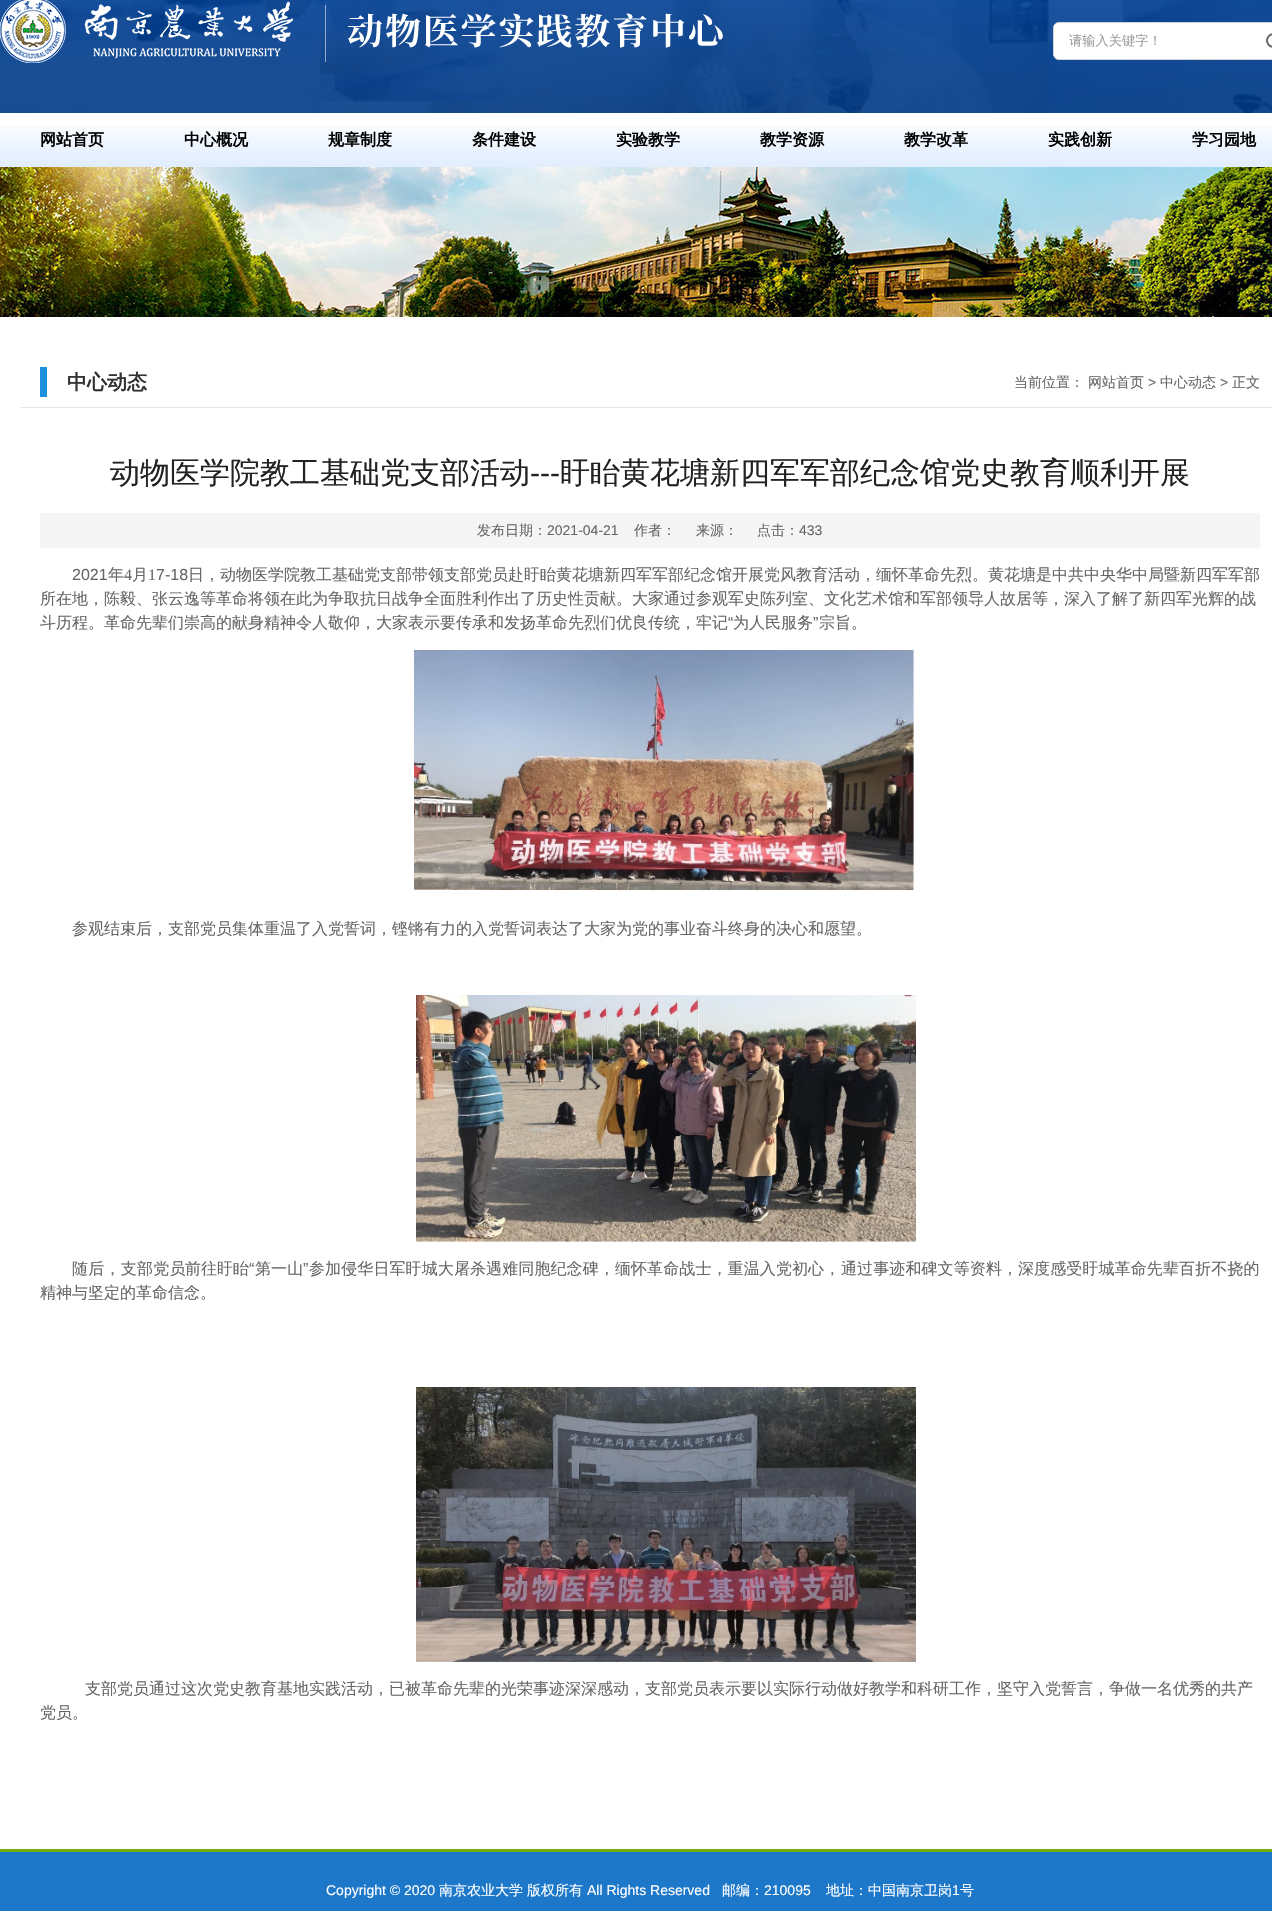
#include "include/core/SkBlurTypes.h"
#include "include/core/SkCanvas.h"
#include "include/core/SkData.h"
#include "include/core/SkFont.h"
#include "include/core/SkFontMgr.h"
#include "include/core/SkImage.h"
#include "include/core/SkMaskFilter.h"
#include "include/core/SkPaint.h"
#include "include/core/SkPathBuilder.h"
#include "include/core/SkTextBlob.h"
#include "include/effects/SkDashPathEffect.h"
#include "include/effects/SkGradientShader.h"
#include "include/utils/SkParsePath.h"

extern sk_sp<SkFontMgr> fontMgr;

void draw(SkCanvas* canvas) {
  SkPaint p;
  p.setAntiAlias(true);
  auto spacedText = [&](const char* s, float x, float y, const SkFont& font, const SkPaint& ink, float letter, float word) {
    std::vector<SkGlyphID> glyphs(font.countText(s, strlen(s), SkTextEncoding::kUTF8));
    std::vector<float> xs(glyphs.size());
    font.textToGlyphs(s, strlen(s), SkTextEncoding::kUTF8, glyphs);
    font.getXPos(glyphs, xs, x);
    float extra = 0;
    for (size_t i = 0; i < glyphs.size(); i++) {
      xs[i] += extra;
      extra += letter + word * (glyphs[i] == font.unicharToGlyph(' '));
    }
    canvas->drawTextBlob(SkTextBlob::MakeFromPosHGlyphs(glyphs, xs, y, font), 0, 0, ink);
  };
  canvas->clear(SK_ColorWHITE);
  canvas->drawImageRect(SkImages::DeferredFromEncodedData(SkData::MakeFromFileName("images/1.png")), SkRect::MakeLTRB(0, 0, 1272, 113), SkSamplingOptions());
  canvas->drawImageRect(SkImages::DeferredFromEncodedData(SkData::MakeFromFileName("images/2.png")), SkRect::MakeLTRB(0, 0, 723, 63), SkSamplingOptions());
  p.setColor(SK_ColorWHITE);
  canvas->drawRoundRect(SkRect::MakeLTRB(1053.5f, 22.5f, 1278.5f, 59.5f), 5.5f, 5.5f, p);
  p.setStyle(SkPaint::kStroke_Style);
  p.setStrokeWidth(1);
  p.setColor(SkColorSetRGB(212, 212, 212));
  canvas->drawRoundRect(SkRect::MakeLTRB(1053.5f, 22.5f, 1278.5f, 59.5f), 5.5f, 5.5f, p);
  p.setStyle(SkPaint::kFill_Style);
  p.setColor(SK_ColorWHITE);
  canvas->drawPath(SkPathBuilder().moveTo(1059, 23).lineTo(1204, 23).lineTo(1204, 59).lineTo(1059, 59).cubicTo(1056, 59, 1054, 57, 1054, 54).lineTo(1054, 28).cubicTo(1054, 25, 1056, 23, 1059, 23).close().detach(), p);
  canvas->drawImageRect(SkImages::DeferredFromEncodedData(SkData::MakeFromFileName("images/3.png")), SkRect::MakeLTRB(1266, 33, 1272, 48), SkSamplingOptions());
  canvas->drawImageRect(SkImages::DeferredFromEncodedData(SkData::MakeFromFileName("images/4.png")), SkRect::MakeLTRB(0, 126, 1272, 167), SkSamplingOptions());
  canvas->drawImageRect(SkImages::DeferredFromEncodedData(SkData::MakeFromFileName("images/5.png")), SkRect::MakeLTRB(0, 167, 1272, 317), SkSamplingOptions());
  p.setColor(SkColorSetRGB(230, 230, 230));
  canvas->drawRect(SkRect::MakeLTRB(20, 407, 1272, 408), p);
  p.setColor(SkColorSetRGB(28, 145, 221));
  canvas->drawRect(SkRect::MakeLTRB(40, 367, 47, 397), p);
  p.setColor(SkColorSetRGB(245, 245, 245));
  canvas->drawRect(SkRect::MakeLTRB(40, 513, 1260, 548), p);
  canvas->drawImageRect(SkImages::DeferredFromEncodedData(SkData::MakeFromFileName("images/6.png")), SkRect::MakeLTRB(414, 650, 914, 890), SkSamplingOptions());
  canvas->drawImageRect(SkImages::DeferredFromEncodedData(SkData::MakeFromFileName("images/7.png")), SkRect::MakeLTRB(416, 995, 916, 1242), SkSamplingOptions());
  canvas->drawImageRect(SkImages::DeferredFromEncodedData(SkData::MakeFromFileName("images/8.png")), SkRect::MakeLTRB(416, 1387, 916, 1662), SkSamplingOptions());
  p.setColor(SkColorSetRGB(29, 120, 201));
  canvas->drawRect(SkRect::MakeLTRB(0, 1852, 1272, 1911), p);
  p.setColor(SkColorSetRGB(113, 174, 4));
  canvas->drawRect(SkRect::MakeLTRB(0, 1849, 1272, 1852), p);
  SkFont font1(fontMgr->matchFamilyStyle("WenQuanYi Zen Hei", SkFontStyle(500, SkFontStyle::kNormal_Width, SkFontStyle::kUpright_Slant)), 13.25f);
  font1.setSubpixel(true);
  p.setColor(SkColorSetRGB(158, 158, 158));
  canvas->drawString("请输入关键字！", 1069, 45, font1, p);
  SkFont font2(fontMgr->matchFamilyStyle("WenQuanYi Zen Hei", SkFontStyle::Bold()), 16);
  font2.setSubpixel(true);
  p.setColor(SK_ColorBLACK);
  canvas->drawString("网站首页", 40, 145, font2, p);
  canvas->drawString("中心概况", 184, 145, font2, p);
  canvas->drawString("规章制度", 328, 145, font2, p);
  canvas->drawString("条件建设", 472, 145, font2, p);
  canvas->drawString("实验教学", 616, 145, font2, p);
  canvas->drawString("教学资源", 760, 145, font2, p);
  canvas->drawString("教学改革", 904, 145, font2, p);
  canvas->drawString("实践创新", 1048, 145, font2, p);
  canvas->drawString("学习园地", 1192, 145, font2, p);
  SkFont font3(fontMgr->matchFamilyStyle("WenQuanYi Zen Hei", SkFontStyle::Bold()), 20);
  font3.setSubpixel(true);
  p.setColor(SkColorSetRGB(51, 51, 51));
  canvas->drawString("中心动态", 67, 389, font3, p);
  SkFont font4(fontMgr->matchFamilyStyle("WenQuanYi Zen Hei", SkFontStyle(500, SkFontStyle::kNormal_Width, SkFontStyle::kUpright_Slant)), 14);
  font4.setSubpixel(true);
  p.setColor(SkColorSetRGB(102, 102, 102));
  canvas->drawString("当前位置：", 1014, 387, font4, p);
  canvas->drawString("网站首页", 1088, 387, font4, p);
  SkFont font5(fontMgr->matchFamilyStyle("Liberation Sans", SkFontStyle::Normal()), 14);
  font5.setSubpixel(true);
  canvas->drawString(">", 1148, 387, font5, p);
  canvas->drawString("中心动态", 1160, 387, font4, p);
  canvas->drawString(">", 1220, 387, font5, p);
  canvas->drawString("正文", 1232, 387, font4, p);
  SkFont font6(fontMgr->matchFamilyStyle("WenQuanYi Zen Hei", SkFontStyle(500, SkFontStyle::kNormal_Width, SkFontStyle::kUpright_Slant)), 30);
  font6.setSubpixel(true);
  p.setColor(SkColorSetRGB(34, 34, 34));
  canvas->drawString("动物医学院教工基础党支部活动", 110, 483, font6, p);
  SkFont font7(fontMgr->matchFamilyStyle("Liberation Sans", SkFontStyle::Normal()), 30);
  font7.setSubpixel(true);
  canvas->drawString("---", 530, 483, font7, p);
  canvas->drawString("盱眙黄花塘新四军军部纪念馆党史教育顺利开展", 560, 483, font6, p);
  p.setColor(SkColorSetRGB(102, 102, 102));
  canvas->drawString("发布日期：", 477, 535, font4, p);
  canvas->drawString("2021-04-21", 547, 535, font5, p);
  canvas->drawString("作者：", 634, 535, font4, p);
  canvas->drawString("来源：", 696, 535, font4, p);
  canvas->drawString("点击：", 757, 535, font4, p);
  canvas->drawString("433", 799, 535, font5, p);
  SkFont font8(fontMgr->matchFamilyStyle("Liberation Sans", SkFontStyle::Normal()), 16);
  font8.setSubpixel(true);
  canvas->drawString("2021", 72, 580, font8, p);
  SkFont font9(fontMgr->matchFamilyStyle("WenQuanYi Zen Hei", SkFontStyle(500, SkFontStyle::kNormal_Width, SkFontStyle::kUpright_Slant)), 16);
  font9.setSubpixel(true);
  canvas->drawString("年", 108, 580, font9, p);
  SkFont font10(fontMgr->matchFamilyStyle("Liberation Serif", SkFontStyle::Normal()), 16);
  font10.setSubpixel(true);
  canvas->drawString("4", 124, 580, font10, p);
  canvas->drawString("月", 132, 580, font9, p);
  canvas->drawString("1", 148, 580, font10, p);
  canvas->drawString("7-18", 156, 580, font8, p);
  canvas->drawString("日，动物医学院教工基础党支部带领支部党员赴盱眙黄花塘新四军军部纪念馆开展党风教育活动，缅怀革命先烈。黄花塘是中共中央华中局暨新四军军部", 188, 580, font9, p);
  canvas->drawString("所在地，陈毅、张云逸等革命将领在此为争取抗日战争全面胜利作出了历史性贡献。大家通过参观军史陈列室、文化艺术馆和军部领导人故居等，深入了解了新四军光辉的战", 40, 604, font9, p);
  canvas->drawString("斗历程。革命先辈们崇高的献身精神令人敬仰，大家表示要传承和发扬革命先烈们优良传统，牢记", 40, 628, font9, p);
  canvas->drawString("“", 728, 628, font8, p);
  canvas->drawString("为人民服务", 733, 628, font9, p);
  canvas->drawString("”", 813, 628, font8, p);
  canvas->drawString("宗旨。", 819, 628, font9, p);
  canvas->drawString("参观结束后，支部党员集体重温了入党誓词，铿锵有力的入党誓词表达了大家为党的事业奋斗终身的决心和愿望。", 72, 934, font9, p);
  spacedText("随后，支部党员", 72, 1274, font9, p, 0.25f, 0);
  canvas->drawString("前往盱眙", 185, 1274, font9, p);
  spacedText("“", 249, 1274, font8, p, 0.1f, 0);
  spacedText("第一山", 255, 1274, font9, p, 0.1f, 0);
  spacedText("”", 303, 1274, font8, p, 0.1f, 0);
  spacedText("参加侵华日军盱城大屠杀遇难同胞纪念碑，缅怀革命战士，重温入党初心，", 309, 1274, font9, p, 0.1f, 0);
  spacedText("通过事迹和碑文等资料，", 841, 1274, font9, p, 0.1f, 0);
  spacedText("深度感受盱城革命先辈百折不挠的", 1018, 1274, font9, p, 0.1f, 0);
  canvas->drawString("精神与坚定的革命信念。", 40, 1298, font9, p);
  canvas->drawString("支部党员通过这次党史教育基地实践活动，已被革命先辈的光荣事迹深深感动，支部党员表示要以实际行动做好教学和科研工作，坚守入党誓言，争做一名优秀的共产", 85, 1694, font9, p);
  p.setColor(SK_ColorWHITE);
  canvas->drawRect(SkRect::MakeLTRB(773, 1694, 774, 1695), p);
  p.setColor(SkColorSetRGB(102, 102, 102));
  canvas->drawString("党员。", 40, 1718, font9, p);
  p.setColor(SK_ColorWHITE);
  canvas->drawString("Copyright © 2020", 326, 1895, font5, p);
  canvas->drawString("南京农业大学", 439, 1895, font4, p);
  canvas->drawString("版权所有", 527, 1895, font4, p);
  canvas->drawString("All Rights Reserved", 587, 1895, font5, p);
  canvas->drawString("邮编：", 722, 1895, font4, p);
  canvas->drawString("210095", 764, 1895, font5, p);
  canvas->drawString("地址：中国南京卫岗", 826, 1895, font4, p);
  canvas->drawString("1", 952, 1895, font5, p);
  canvas->drawString("号", 960, 1895, font4, p);
}
